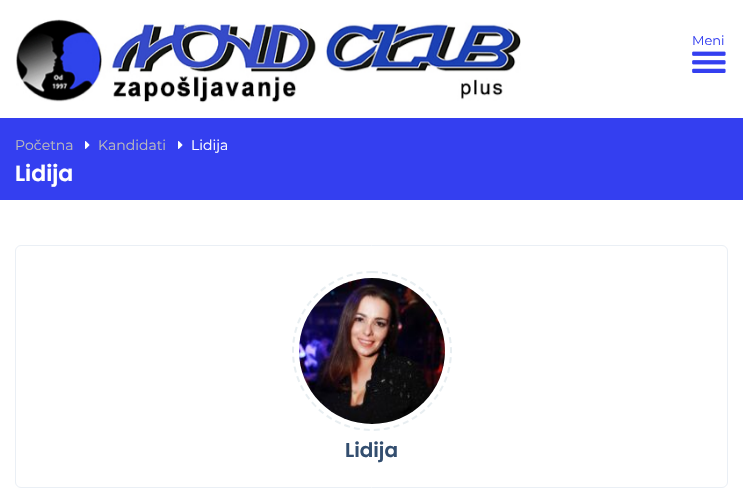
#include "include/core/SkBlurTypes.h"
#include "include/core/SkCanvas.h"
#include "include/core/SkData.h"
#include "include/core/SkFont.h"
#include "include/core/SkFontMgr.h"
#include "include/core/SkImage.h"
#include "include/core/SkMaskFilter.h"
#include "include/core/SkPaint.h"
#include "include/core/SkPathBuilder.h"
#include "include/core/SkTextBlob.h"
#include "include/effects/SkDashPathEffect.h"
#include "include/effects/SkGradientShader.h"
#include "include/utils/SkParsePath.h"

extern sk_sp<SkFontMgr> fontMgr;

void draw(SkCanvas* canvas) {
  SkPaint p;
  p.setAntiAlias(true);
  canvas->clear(SK_ColorWHITE);
  canvas->drawImageRect(SkImages::DeferredFromEncodedData(SkData::MakeFromFileName("images/1.png")), SkRect::MakeLTRB(16, 19, 521, 103), SkSamplingOptions());
  canvas->drawImageRect(SkImages::DeferredFromEncodedData(SkData::MakeFromFileName("images/2.png")), SkRect::MakeLTRB(692, 51, 726, 73), SkSamplingOptions());
  p.setColor(SkColorSetRGB(52, 63, 240));
  canvas->drawRect(SkRect::MakeLTRB(0, 118, 743, 200), p);
  canvas->drawImageRect(SkImages::DeferredFromEncodedData(SkData::MakeFromFileName("images/3.png")), SkRect::MakeLTRB(85, 141, 90, 149), SkSamplingOptions());
  canvas->drawImageRect(SkImages::DeferredFromEncodedData(SkData::MakeFromFileName("images/3.png")), SkRect::MakeLTRB(178, 141, 183, 149), SkSamplingOptions());
  p.setStyle(SkPaint::kStroke_Style);
  p.setStrokeWidth(1);
  p.setColor(SkColorSetRGB(234, 239, 245));
  canvas->drawRoundRect(SkRect::MakeLTRB(15.5f, 245.5f, 727.5f, 487.5f), 5.5f, 5.5f, p);
  p.setStrokeWidth(2);
  p.setColor(SkColorSetRGB(232, 238, 241));
  p.setPathEffect(SkDashPathEffect::Make({{6, 4}}, 0));
  canvas->drawPath(SkPathBuilder().moveTo(372, 272).cubicTo(415.5f, 272, 451, 307.5f, 451, 351).cubicTo(451, 394.5f, 415.5f, 430, 372, 430).cubicTo(328.5f, 430, 293, 394.5f, 293, 351).cubicTo(293, 307.5f, 328.5f, 272, 372, 272).close().detach(), p);
  p.setPathEffect(nullptr);
  canvas->drawImageRect(SkImages::DeferredFromEncodedData(SkData::MakeFromFileName("images/4.png")), SkRect::MakeLTRB(299, 278, 445, 424), SkSamplingOptions());
  SkFont font1(fontMgr->matchFamilyStyle("Montserrat", SkFontStyle::Normal()), 13);
  font1.setSubpixel(true);
  p.setStyle(SkPaint::kFill_Style);
  p.setColor(SkColorSetRGB(52, 63, 240));
  canvas->drawString("Meni", 692, 45, font1, p);
  SkFont font2(fontMgr->matchFamilyStyle("Montserrat", SkFontStyle::Normal()), 14);
  font2.setSubpixel(true);
  p.setColor(SkColorSetRGB(187, 187, 187));
  canvas->drawString("Početna", 15, 150, font2, p);
  canvas->drawString("Kandidati", 98, 150, font2, p);
  p.setColor(SK_ColorWHITE);
  canvas->drawString("Lidija", 191, 150, font2, p);
  SkFont font3(fontMgr->matchFamilyStyle("Poppins", SkFontStyle(600, SkFontStyle::kNormal_Width, SkFontStyle::kUpright_Slant)), 22);
  font3.setSubpixel(true);
  canvas->drawString("Lidija", 15, 181, font3, p);
  SkFont font4(fontMgr->matchFamilyStyle("Poppins", SkFontStyle(600, SkFontStyle::kNormal_Width, SkFontStyle::kUpright_Slant)), 20);
  font4.setSubpixel(true);
  p.setColor(SkColorSetRGB(51, 78, 111));
  canvas->drawString("Lidija", 345, 457, font4, p);
}
